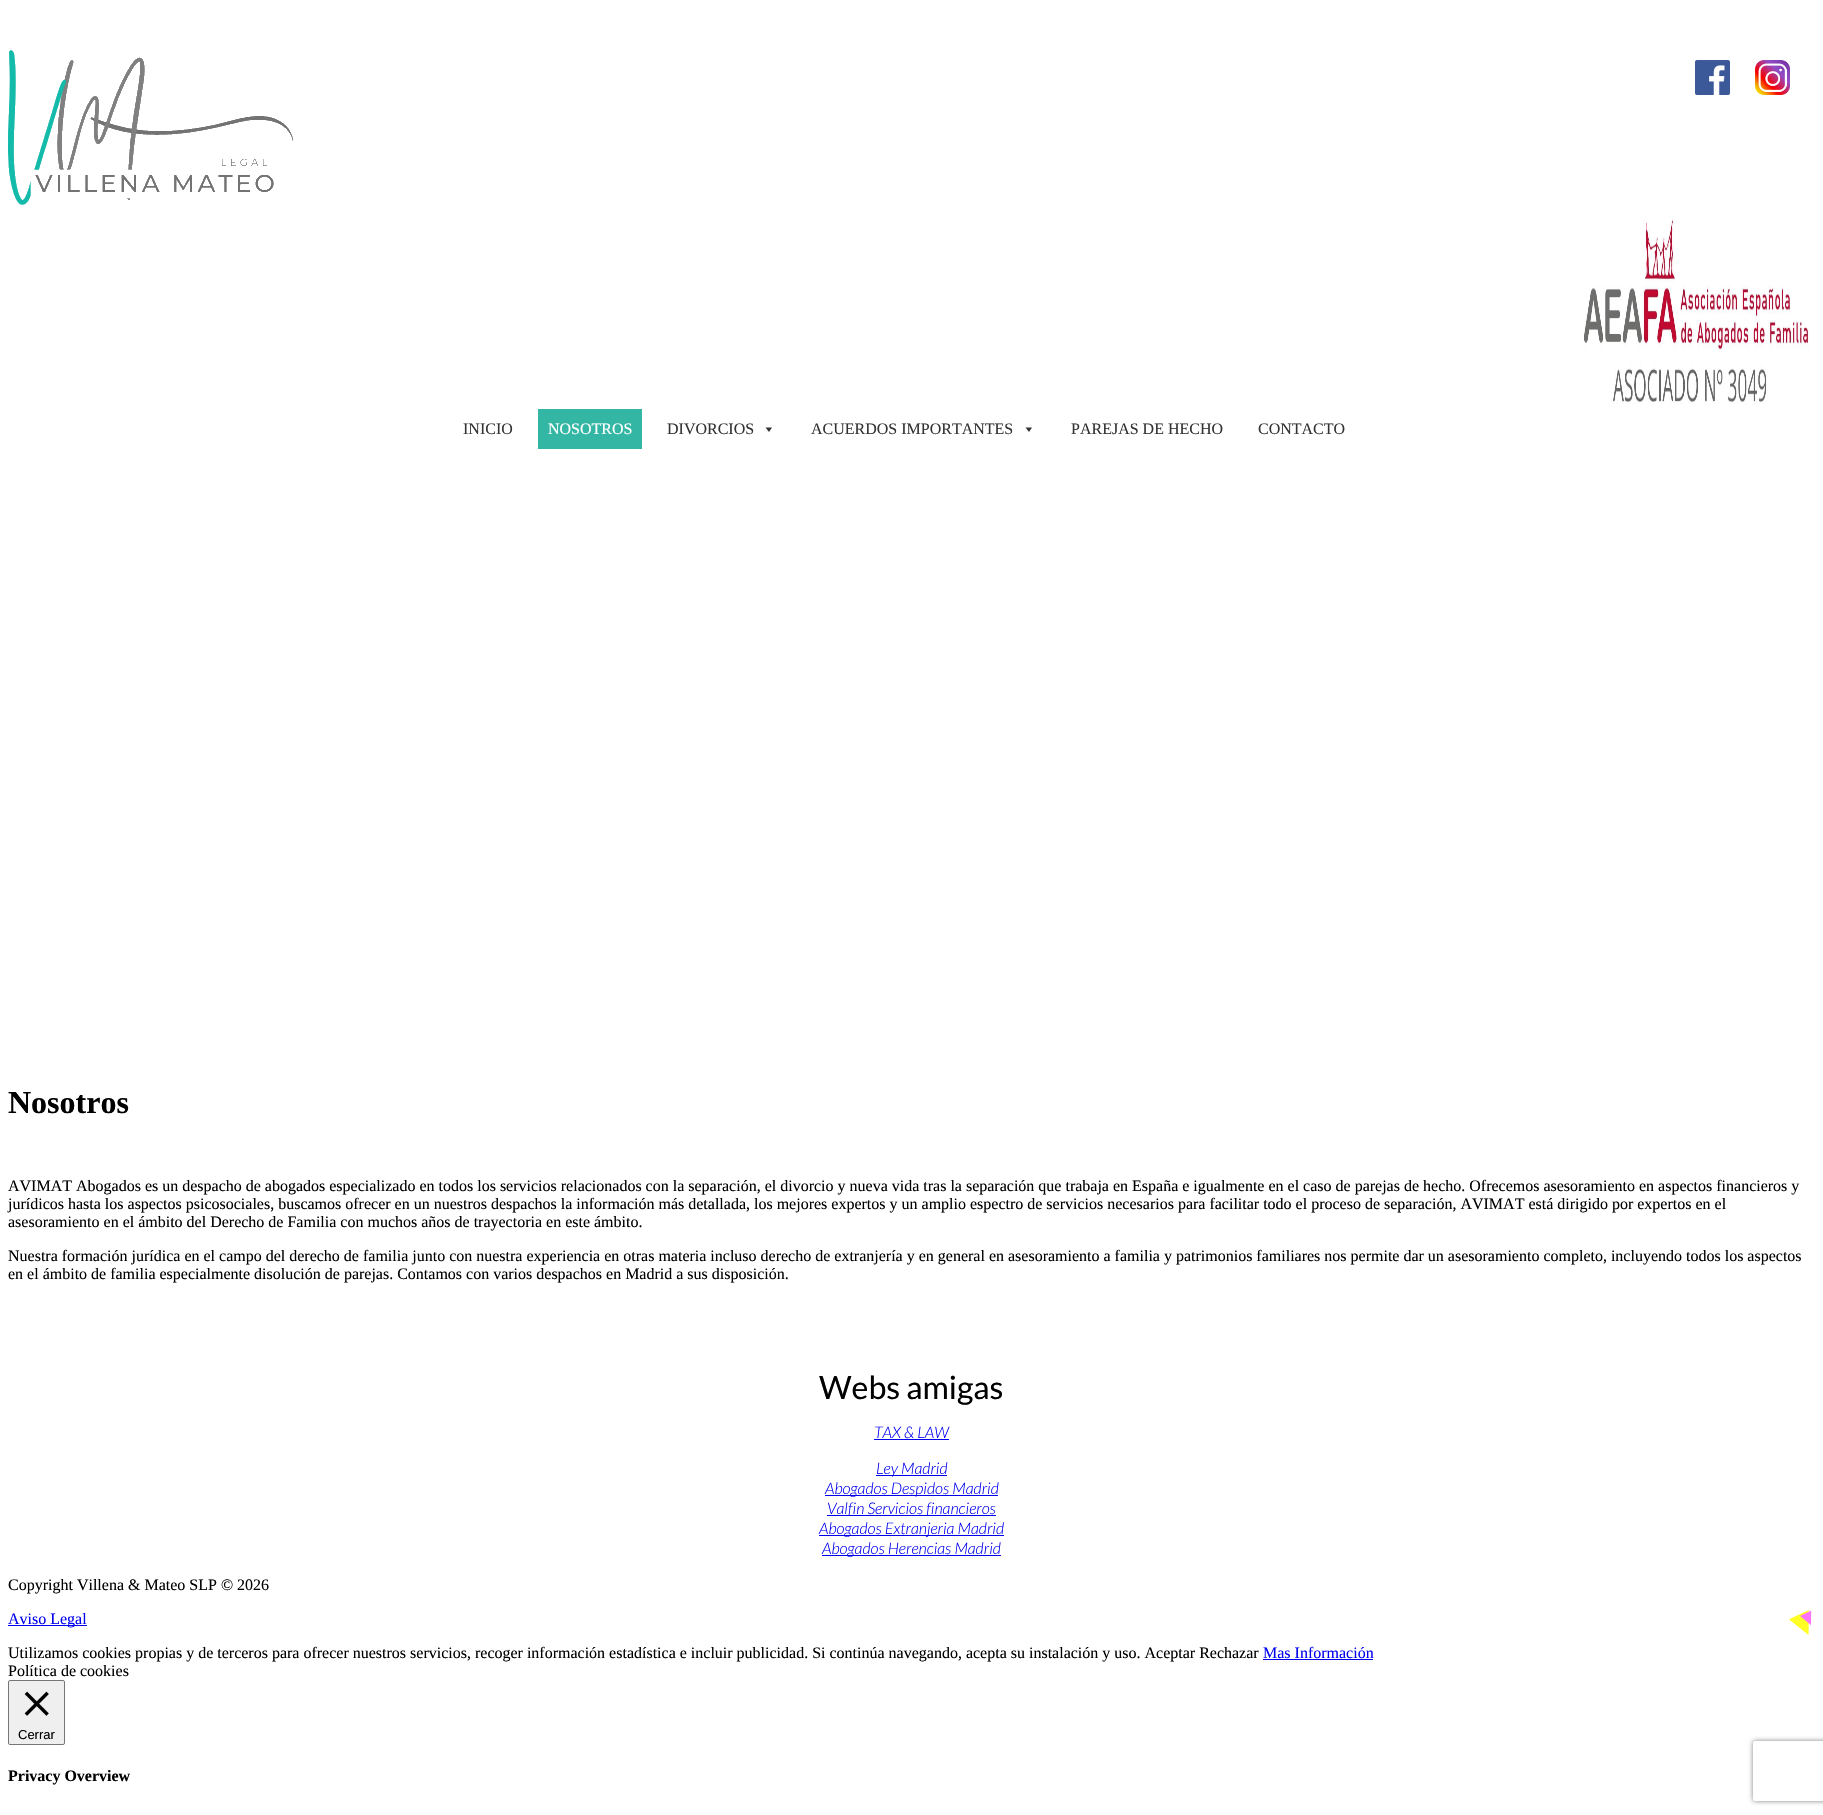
#include "include/core/SkBlurTypes.h"
#include "include/core/SkCanvas.h"
#include "include/core/SkData.h"
#include "include/core/SkFont.h"
#include "include/core/SkFontMgr.h"
#include "include/core/SkImage.h"
#include "include/core/SkMaskFilter.h"
#include "include/core/SkPaint.h"
#include "include/core/SkPathBuilder.h"
#include "include/core/SkTextBlob.h"
#include "include/effects/SkDashPathEffect.h"
#include "include/effects/SkGradientShader.h"
#include "include/utils/SkParsePath.h"

extern sk_sp<SkFontMgr> fontMgr;

void draw(SkCanvas* canvas) {
  SkPaint p;
  p.setAntiAlias(true);
  canvas->clear(SK_ColorWHITE);
  canvas->drawImageRect(SkImages::DeferredFromEncodedData(SkData::MakeFromFileName("images/1.png")), SkRect::MakeLTRB(8, 50, 293, 205), SkSamplingOptions());
  canvas->drawImageRect(SkImages::DeferredFromEncodedData(SkData::MakeFromFileName("images/2.png")), SkRect::MakeLTRB(1695, 60, 1730, 95), SkSamplingOptions());
  canvas->drawImageRect(SkImages::DeferredFromEncodedData(SkData::MakeFromFileName("images/3.png")), SkRect::MakeLTRB(1755, 60, 1790, 95), SkSamplingOptions());
  canvas->drawImageRect(SkImages::DeferredFromEncodedData(SkData::MakeFromFileName("images/4.png")), SkRect::MakeLTRB(1584, 216, 1809, 404), SkSamplingOptions());
  p.setColor(SkColorSetRGB(51, 182, 164));
  canvas->drawRect(SkRect::MakeLTRB(538, 409, 642, 449), p);
  p.setColor(SkColorSetRGB(51, 51, 51));
  canvas->drawPath(SkPathBuilder().moveTo(772, 427.5f).lineTo(769, 432).lineTo(765.5f, 427.5f).close().detach(), p);
  canvas->drawPath(SkPathBuilder().moveTo(1032, 427.5f).lineTo(1029, 432).lineTo(1025.5f, 427.5f).close().detach(), p);
  p.setColor(SkColorSetRGB(0, 0, 238));
  canvas->drawRect(SkRect::MakeLTRB(874, 1439, 949, 1440), p);
  canvas->drawRect(SkRect::MakeLTRB(876, 1475, 947, 1476), p);
  canvas->drawRect(SkRect::MakeLTRB(825, 1495, 998, 1496), p);
  canvas->drawRect(SkRect::MakeLTRB(827, 1515, 996, 1516), p);
  canvas->drawRect(SkRect::MakeLTRB(819, 1535, 1004, 1536), p);
  canvas->drawRect(SkRect::MakeLTRB(822, 1555, 1001, 1556), p);
  canvas->drawRect(SkRect::MakeLTRB(8, 1625, 87, 1626), p);
  canvas->drawImageRect(SkImages::DeferredFromEncodedData(SkData::MakeFromFileName("images/5.png")), SkRect::MakeLTRB(1788, 1610, 1812, 1635), SkSamplingOptions());
  canvas->drawRect(SkRect::MakeLTRB(1263, 1659, 1373, 1660), p);
  p.setColor(SkColorSetRGB(239, 239, 239));
  canvas->drawRoundRect(SkRect::MakeLTRB(8.5f, 1680.5f, 64.5f, 1744.5f), 1.5f, 1.5f, p);
  p.setStyle(SkPaint::kStroke_Style);
  p.setStrokeWidth(1);
  p.setColor(SkColorSetRGB(118, 118, 118));
  canvas->drawRoundRect(SkRect::MakeLTRB(8.5f, 1680.5f, 64.5f, 1744.5f), 1.5f, 1.5f, p);
  canvas->drawImageRect(SkImages::DeferredFromEncodedData(SkData::MakeFromFileName("images/6.png")), SkRect::MakeLTRB(24, 1691, 49, 1716), SkSamplingOptions());
  canvas->save();
  canvas->clipPath(SkPathBuilder(SkPathFillType::kEvenOdd).moveTo(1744, 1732).lineTo(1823, 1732).lineTo(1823, 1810).lineTo(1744, 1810).close().moveTo(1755, 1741).lineTo(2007, 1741).cubicTo(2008, 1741, 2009, 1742, 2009, 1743).lineTo(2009, 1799).cubicTo(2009, 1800, 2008, 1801, 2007, 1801).lineTo(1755, 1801).cubicTo(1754, 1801, 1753, 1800, 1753, 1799).lineTo(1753, 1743).cubicTo(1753, 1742, 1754, 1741, 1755, 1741).close().detach(), true);
  p.setStyle(SkPaint::kFill_Style);
  p.setColor(SkColorSetRGB(128, 128, 128));
  p.setMaskFilter(SkMaskFilter::MakeBlur(kNormal_SkBlurStyle, 2.5f));
  canvas->drawRoundRect(SkRect::MakeLTRB(1753, 1741, 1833, 1801), 2, 2, p);
  p.setMaskFilter(nullptr);
  canvas->restore();
  SkFont font1(fontMgr->matchFamilyStyle("Liberation Serif", SkFontStyle::Normal()), 16);
  font1.setSubpixel(true);
  p.setColor(SkColorSetRGB(51, 51, 51));
  canvas->drawString("INICIO", 463, 434, font1, p);
  p.setColor(SK_ColorWHITE);
  canvas->drawString("NOSOTROS", 548, 434, font1, p);
  p.setColor(SkColorSetRGB(51, 51, 51));
  canvas->drawString("DIVORCIOS", 667, 434, font1, p);
  canvas->drawString("ACUERDOS IMPORTANTES", 811, 434, font1, p);
  canvas->drawString("PAREJAS DE HECHO", 1071, 434, font1, p);
  canvas->drawString("CONTACTO", 1258, 434, font1, p);
  SkFont font2(fontMgr->matchFamilyStyle("Liberation Serif", SkFontStyle::Bold()), 32);
  font2.setSubpixel(true);
  p.setColor(SK_ColorBLACK);
  canvas->drawString("Nosotros", 8, 1113, font2, p);
  canvas->drawString("AVIMAT Abogados es un despacho de abogados especializado en todos los servicios relacionados con la separación, el divorcio y nueva vida tras la separación que trabaja en España e igualmente en el caso de parejas de hecho. Ofrecemos asesoramiento en aspectos financieros y", 8, 1191, font1, p);
  canvas->drawString("jurídicos hasta los aspectos psicosociales, buscamos ofrecer en un nuestros despachos la información más detallada, los mejores expertos y un amplio espectro de servicios necesarios para facilitar todo el proceso de separación, AVIMAT está dirigido por expertos en el", 8, 1209, font1, p);
  canvas->drawString("asesoramiento en el ámbito del Derecho de Familia con muchos años de trayectoria en este ámbito.", 8, 1227, font1, p);
  canvas->drawString("Nuestra formación jurídica en el campo del derecho de familia junto con nuestra experiencia en otras materia incluso derecho de extranjería y en general en asesoramiento a familia y patrimonios familiares nos permite dar un asesoramiento completo, incluyendo todos los aspectos", 8, 1261, font1, p);
  canvas->drawString("en el ámbito de familia especialmente disolución de parejas. Contamos con varios despachos en Madrid a sus disposición.", 8, 1279, font1, p);
  SkFont font3(fontMgr->matchFamilyStyle("Lato", SkFontStyle::Normal()), 32);
  font3.setSubpixel(true);
  canvas->drawString("Webs amigas", 819, 1399, font3, p);
  SkFont font4(fontMgr->matchFamilyStyle("Lato", SkFontStyle(300, SkFontStyle::kNormal_Width, SkFontStyle::kItalic_Slant)), 16);
  font4.setSubpixel(true);
  p.setColor(SkColorSetRGB(0, 0, 238));
  canvas->drawString("TAX & LAW", 874, 1438, font4, p);
  canvas->drawString("Ley Madrid", 876, 1474, font4, p);
  canvas->drawString("Abogados Despidos Madrid", 825, 1494, font4, p);
  canvas->drawString("Valfin Servicios financieros", 827, 1514, font4, p);
  canvas->drawString("Abogados Extranjeria Madrid", 819, 1534, font4, p);
  canvas->drawString("Abogados Herencias Madrid", 822, 1554, font4, p);
  p.setColor(SK_ColorBLACK);
  canvas->drawString("Copyright Villena & Mateo SLP © 2026", 8, 1590, font1, p);
  p.setColor(SkColorSetRGB(0, 0, 238));
  canvas->drawString("Aviso Legal", 8, 1624, font1, p);
  p.setColor(SK_ColorBLACK);
  canvas->drawString("Utilizamos cookies propias y de terceros para ofrecer nuestros servicios, recoger información estadística e incluir publicidad. Si continúa navegando, acepta su instalación y uso. Aceptar Rechazar", 8, 1658, font1, p);
  p.setColor(SkColorSetRGB(0, 0, 238));
  canvas->drawString("Mas Información", 1263, 1658, font1, p);
  p.setColor(SK_ColorBLACK);
  canvas->drawString("Política de cookies", 8, 1676, font1, p);
  SkFont font5(fontMgr->matchFamilyStyle("Liberation Sans", SkFontStyle::Normal()), 13);
  font5.setSubpixel(true);
  canvas->drawString("Cerrar", 18, 1739, font5, p);
  SkFont font6(fontMgr->matchFamilyStyle("Liberation Serif", SkFontStyle::Bold()), 16);
  font6.setSubpixel(true);
  canvas->drawString("Privacy Overview", 8, 1781, font6, p);
}
